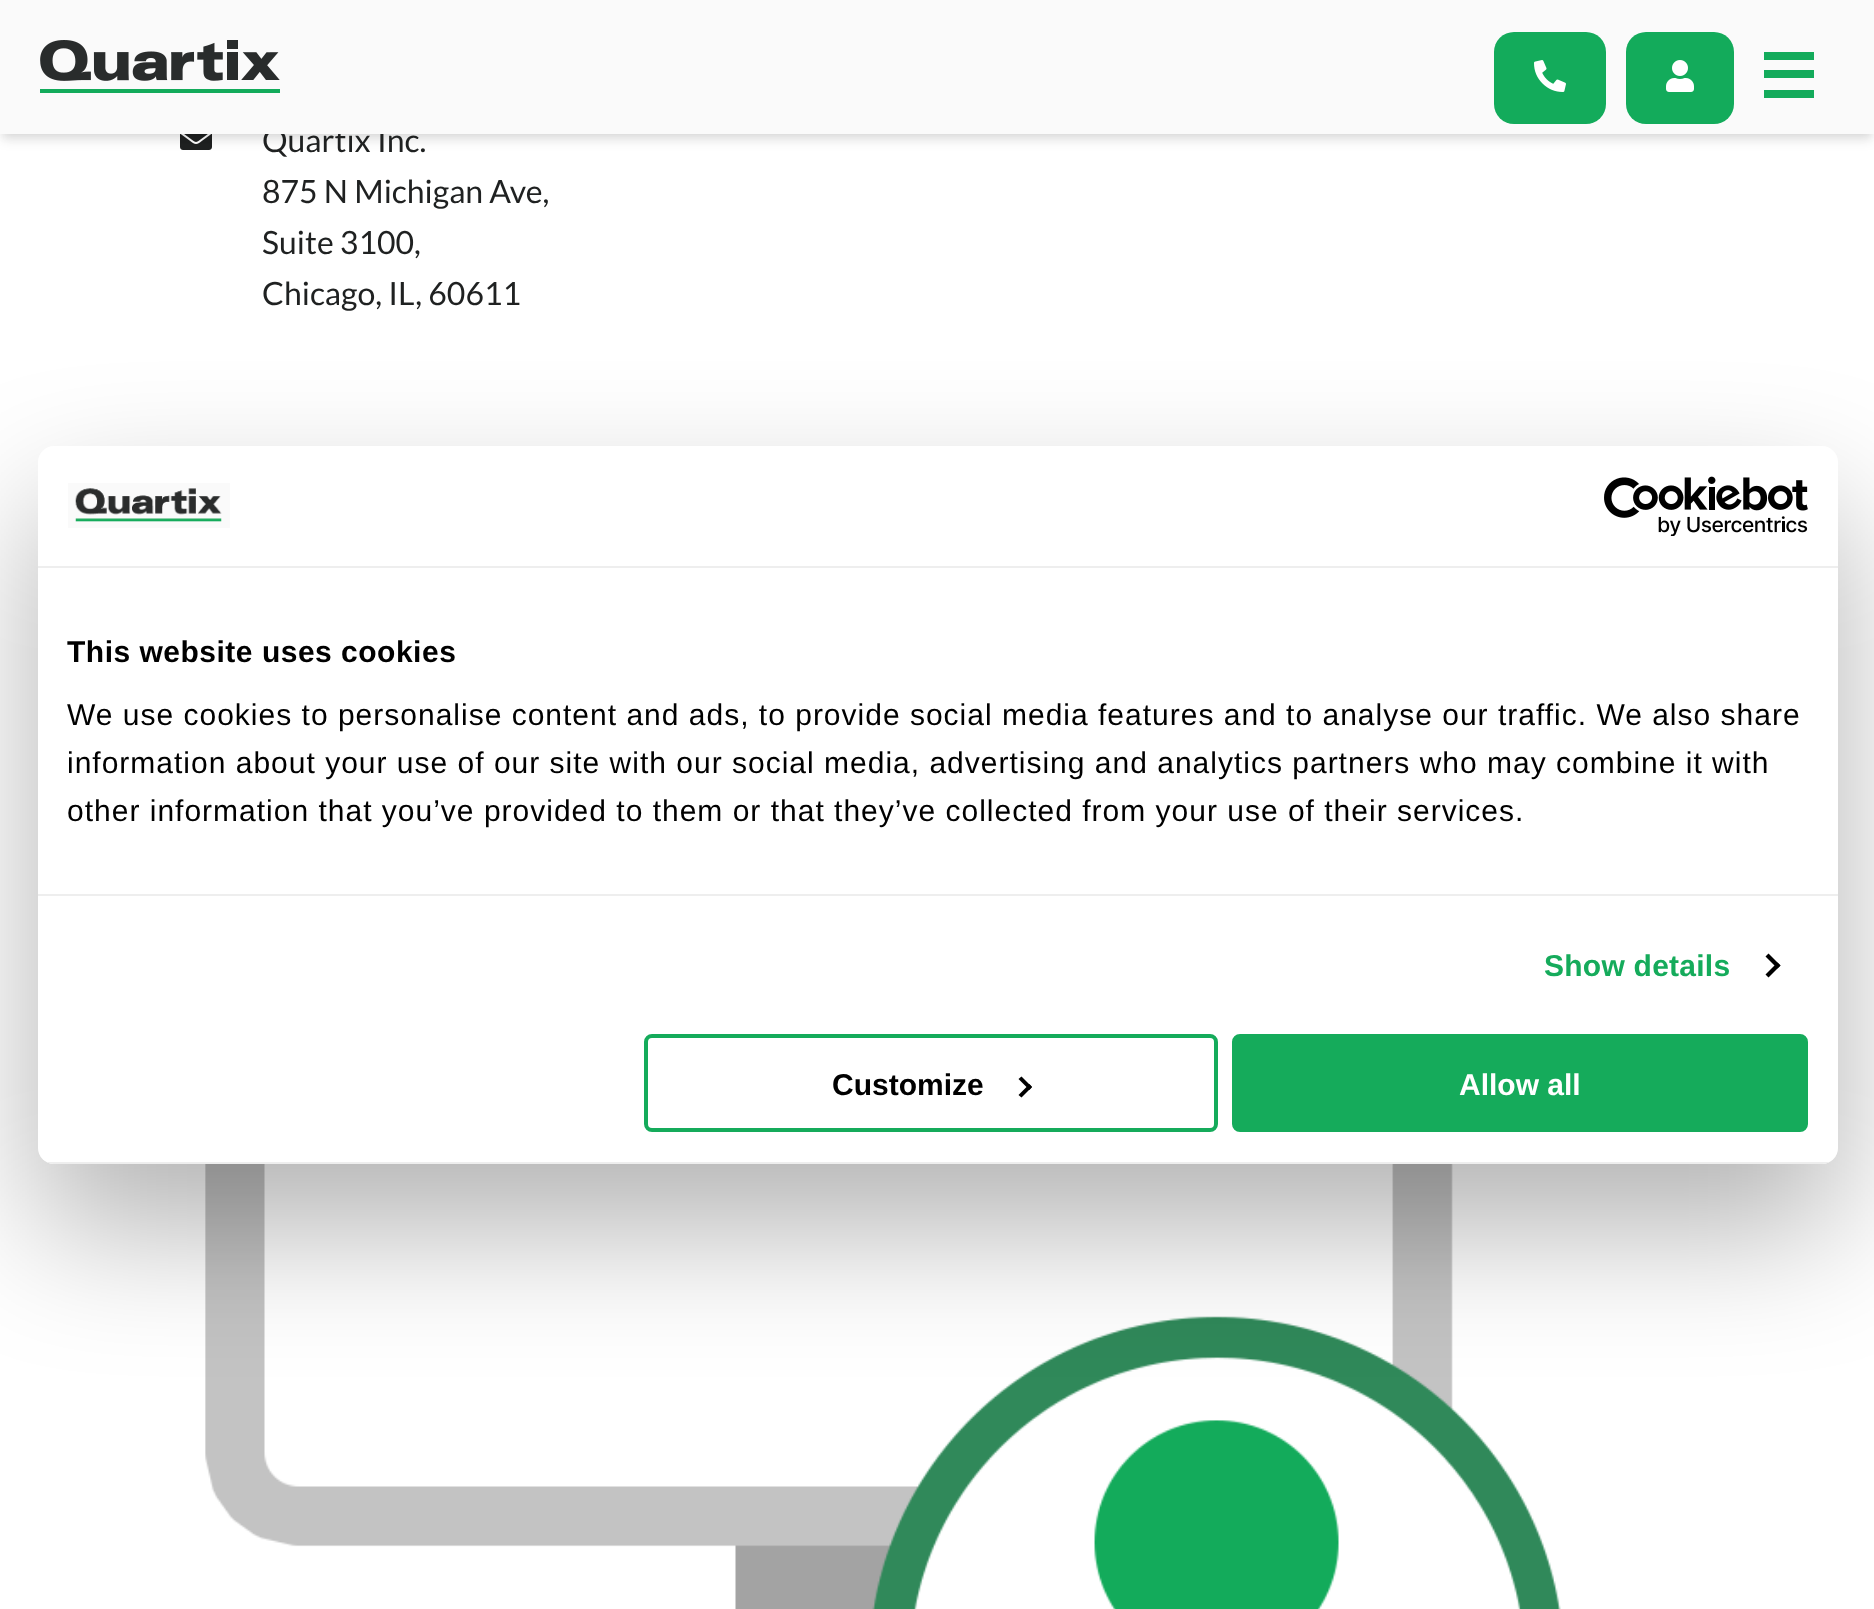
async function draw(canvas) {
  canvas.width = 1874;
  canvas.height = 1609;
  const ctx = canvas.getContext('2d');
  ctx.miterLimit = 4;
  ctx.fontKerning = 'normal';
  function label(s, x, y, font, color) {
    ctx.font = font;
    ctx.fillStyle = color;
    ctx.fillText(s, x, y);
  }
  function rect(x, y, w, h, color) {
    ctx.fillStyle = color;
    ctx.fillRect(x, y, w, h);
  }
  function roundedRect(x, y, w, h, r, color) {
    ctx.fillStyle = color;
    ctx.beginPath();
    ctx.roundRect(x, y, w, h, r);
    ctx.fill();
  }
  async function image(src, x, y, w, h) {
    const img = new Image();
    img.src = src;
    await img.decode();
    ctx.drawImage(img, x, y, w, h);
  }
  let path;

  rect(0, 0, 1874, 1609, '#fff');
  await image('assets/img4.png', 180, 134, 32, 16);
  ctx.fillStyle = '#0000000f';
  ctx.filter = 'blur(4px)';
  ctx.beginPath();
  ctx.rect(2, 6, 1870, 130);
  ctx.fill();
  ctx.filter = 'none';
  ctx.fillStyle = '#0000001a';
  ctx.filter = 'blur(6px)';
  ctx.beginPath();
  ctx.rect(2, 10, 1870, 130);
  ctx.fill();
  ctx.filter = 'none';
  label('Quartix Inc.', 262, 152, '32px Lato', '#1f2121');
  rect(0, 0, 1874, 134, '#fafafa');
  await image('assets/img1.png', 40, 40, 240, 53);
  roundedRect(1494, 32, 112, 92, 20, '#13ab5b');
  await image('assets/img2.png', 1534, 60, 32, 32);
  roundedRect(1626, 32, 108, 92, 20, '#13ab5b');
  await image('assets/img3.png', 1666, 60, 28, 32);
  rect(1764, 70, 50, 8, '#13ab5b');
  rect(1764, 52, 50, 8, '#13ab5b');
  rect(1764, 90, 50, 8, '#13ab5b');
  label('875 N Michigan Ave,', 262, 203, '32px Lato', '#1f2121');
  label('Suite 3100,', 262, 254, '32px Lato', '#1f2121');
  label('Chicago, IL, 60611', 262, 305, '32px Lato', '#1f2121');
  await image('assets/img5.png', 205, 1164, 1356, 445);
  ctx.fillStyle = '#0000004d';
  ctx.filter = 'blur(68px)';
  ctx.beginPath();
  ctx.roundRect(38, 510, 1800, 718, 16);
  ctx.fill();
  ctx.filter = 'none';
  roundedRect(38, 446, 1800, 718, 16, '#fff');
  rect(38, 566, 1800, 2, '#eee');
  await image('assets/img6.png', 68, 483, 162, 45);
  await image('assets/img7.png', 1604, 476, 204, 60);
  rect(38, 894, 1800, 2, '#eee');
  ctx.letterSpacing = '0.5px';
  label('This website uses cookies', 67, 662, 'bold 30px Liberation Sans', '#000');
  ctx.letterSpacing = '1px';
  label('We use cookies to personalise content and ads, to provide social media features and to analyse our traffic. We also share', 67, 725, '30px Liberation Sans', '#000');
  label('information about your use of our site with our social media, advertising and analytics partners who may combine it with', 67, 773, '30px Liberation Sans', '#000');
  label('other information that you’ve provided to them or that they’ve collected from your use of their services.', 67, 821, '30px Liberation Sans', '#000');
  ctx.letterSpacing = '0.25px';
  label('Show details', 1544, 976, 'bold 30px Liberation Sans', '#15ab5b');
  ctx.fillStyle = '#000';
  path = new Path2D('M1768.5 953.5L1780.5 965.5L1777.5 968.5L1765.5 956.5Z');
  ctx.fill(path);
  path = new Path2D('M1777.5 962.5L1780.5 965.5L1768.5 977.5L1765.5 974.5Z');
  ctx.fill(path);
  ctx.save();
  ctx.beginPath();
  ctx.roundRect(38, 446, 1800, 718, 16);
  ctx.clip();
  rect(38, 1162, 1800, 2, '#eee');
  ctx.restore();
  ctx.beginPath();
  ctx.roundRect(646, 1036, 570, 94, 6);
  ctx.strokeStyle = '#15ab5b';
  ctx.lineWidth = 4;
  ctx.stroke();
  ctx.letterSpacing = '0px';
  label('Customize', 832, 1095, 'bold 30px Liberation Sans', '#000');
  path = new Path2D('M1021.5 1076.5L1032 1087L1029.5 1090L1018.5 1079Z');
  ctx.fill(path);
  path = new Path2D('M1029.5 1084L1032 1087L1021.5 1097.5L1018.5 1095Z');
  ctx.fill(path);
  ctx.fillStyle = '#15ab5b';
  ctx.beginPath();
  ctx.roundRect(1234, 1036, 572, 94, 6);
  ctx.fill();
  ctx.stroke();
  label('Allow all', 1459, 1095, 'bold 30px Liberation Sans', '#fff');
}

draw(document.querySelector('canvas'));
